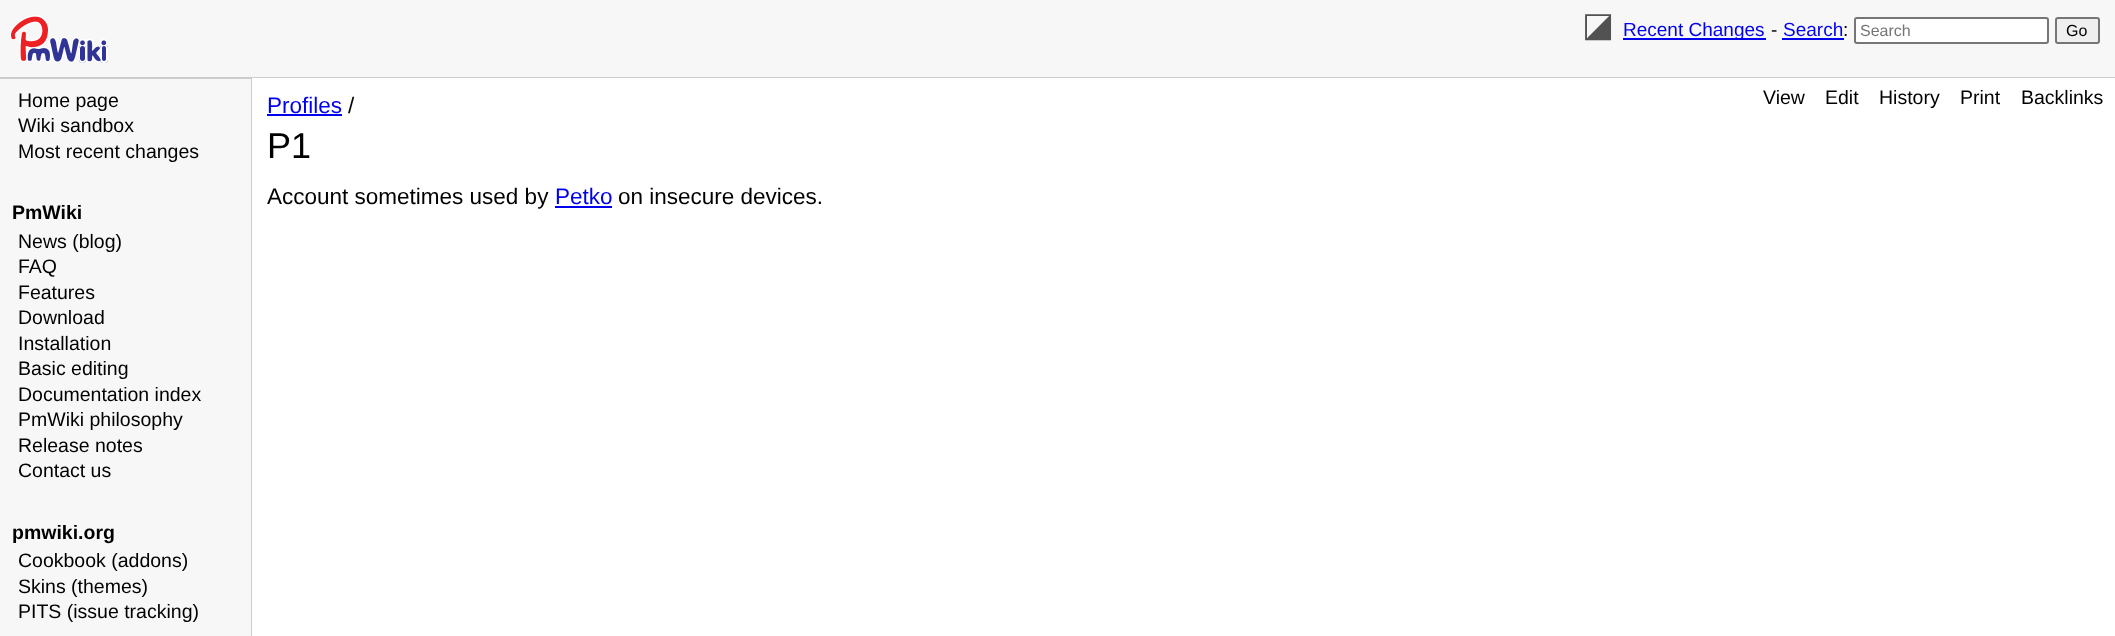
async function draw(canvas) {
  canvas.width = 2115;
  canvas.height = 636;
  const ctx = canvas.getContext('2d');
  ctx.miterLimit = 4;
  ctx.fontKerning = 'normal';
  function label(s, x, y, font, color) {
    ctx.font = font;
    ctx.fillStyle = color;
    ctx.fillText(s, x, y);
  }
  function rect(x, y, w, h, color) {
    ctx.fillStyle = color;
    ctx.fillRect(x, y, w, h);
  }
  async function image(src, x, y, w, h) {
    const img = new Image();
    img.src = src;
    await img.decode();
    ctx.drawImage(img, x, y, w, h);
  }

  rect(0, 0, 2115, 636, '#f7f7f7');
  rect(0, 77, 2115, 2, '#ccc');
  await image('assets/img1.png', 10, 15, 98, 48);
  label('◪', 1582, 36, '34px DejaVu Sans', '#525252');
  rect(1623, 38, 143, 2, '#00e');
  label('Recent Changes', 1623, 36, '19px Liberation Sans', '#00e');
  label('-', 1771, 36, '19px Liberation Sans', '#000');
  label('Search', 1783, 36, '19px Liberation Sans', '#00e');
  label(':', 1843, 36, '19px Liberation Sans', '#000');
  rect(1782, 38, 62, 2, '#00e');
  ctx.fillStyle = '#fff';
  ctx.beginPath();
  ctx.roundRect(1855, 18, 193, 25, 2);
  ctx.fill();
  ctx.strokeStyle = '#767676';
  ctx.lineWidth = 2;
  ctx.stroke();
  label('Search', 1860, 36, '16px Liberation Sans', '#757575');
  ctx.fillStyle = '#efefef';
  ctx.beginPath();
  ctx.roundRect(2056, 18, 43, 25, 2);
  ctx.fill();
  ctx.stroke();
  label('Go', 2066, 36, '16px Liberation Sans', '#000');
  rect(251, 78, 1, 558, '#ccc');
  label('Home page', 18, 107, '19.5px Liberation Sans', '#000');
  label('Wiki sandbox', 18, 132, '19.5px Liberation Sans', '#000');
  label('Most recent changes', 18, 158, '19.5px Liberation Sans', '#000');
  label('PmWiki', 12, 219, 'bold 19.5px Liberation Sans', '#000');
  label('News (blog)', 18, 248, '19.5px Liberation Sans', '#000');
  label('FAQ', 18, 273, '19.5px Liberation Sans', '#000');
  label('Features', 18, 299, '19.5px Liberation Sans', '#000');
  label('Download', 18, 324, '19.5px Liberation Sans', '#000');
  label('Installation', 18, 350, '19.5px Liberation Sans', '#000');
  label('Basic editing', 18, 375, '19.5px Liberation Sans', '#000');
  label('Documentation index', 18, 401, '19.5px Liberation Sans', '#000');
  label('PmWiki philosophy', 18, 426, '19.5px Liberation Sans', '#000');
  label('Release notes', 18, 452, '19.5px Liberation Sans', '#000');
  label('Contact us', 18, 477, '19.5px Liberation Sans', '#000');
  label('pmwiki.org', 12, 539, 'bold 19.5px Liberation Sans', '#000');
  label('Cookbook (addons)', 18, 567, '19.5px Liberation Sans', '#000');
  label('Skins (themes)', 18, 593, '19.5px Liberation Sans', '#000');
  label('PITS (issue tracking)', 18, 618, '19.5px Liberation Sans', '#000');
  rect(252, 78, 1863, 558, '#fff');
  label('Profiles', 267, 113, '22.5px Liberation Sans', '#00e');
  rect(267, 114, 75, 2, '#00e');
  label('/', 348, 113, '22.5px Liberation Sans', '#000');
  label('P1', 267, 158, '36px Liberation Sans', '#000');
  label('View', 1763, 104, '19.5px Liberation Sans', '#000');
  label('Edit', 1825, 104, '19.5px Liberation Sans', '#000');
  label('History', 1879, 104, '19.5px Liberation Sans', '#000');
  label('Print', 1960, 104, '19.5px Liberation Sans', '#000');
  label('Backlinks', 2021, 104, '19.5px Liberation Sans', '#000');
  label('Account sometimes used by', 267, 204, '22.5px Liberation Sans', '#000');
  label('Petko', 555, 204, '22.5px Liberation Sans', '#00e');
  rect(555, 206, 57, 2, '#00e');
  label('on insecure devices.', 618, 204, '22.5px Liberation Sans', '#000');
}

draw(document.querySelector('canvas'));
